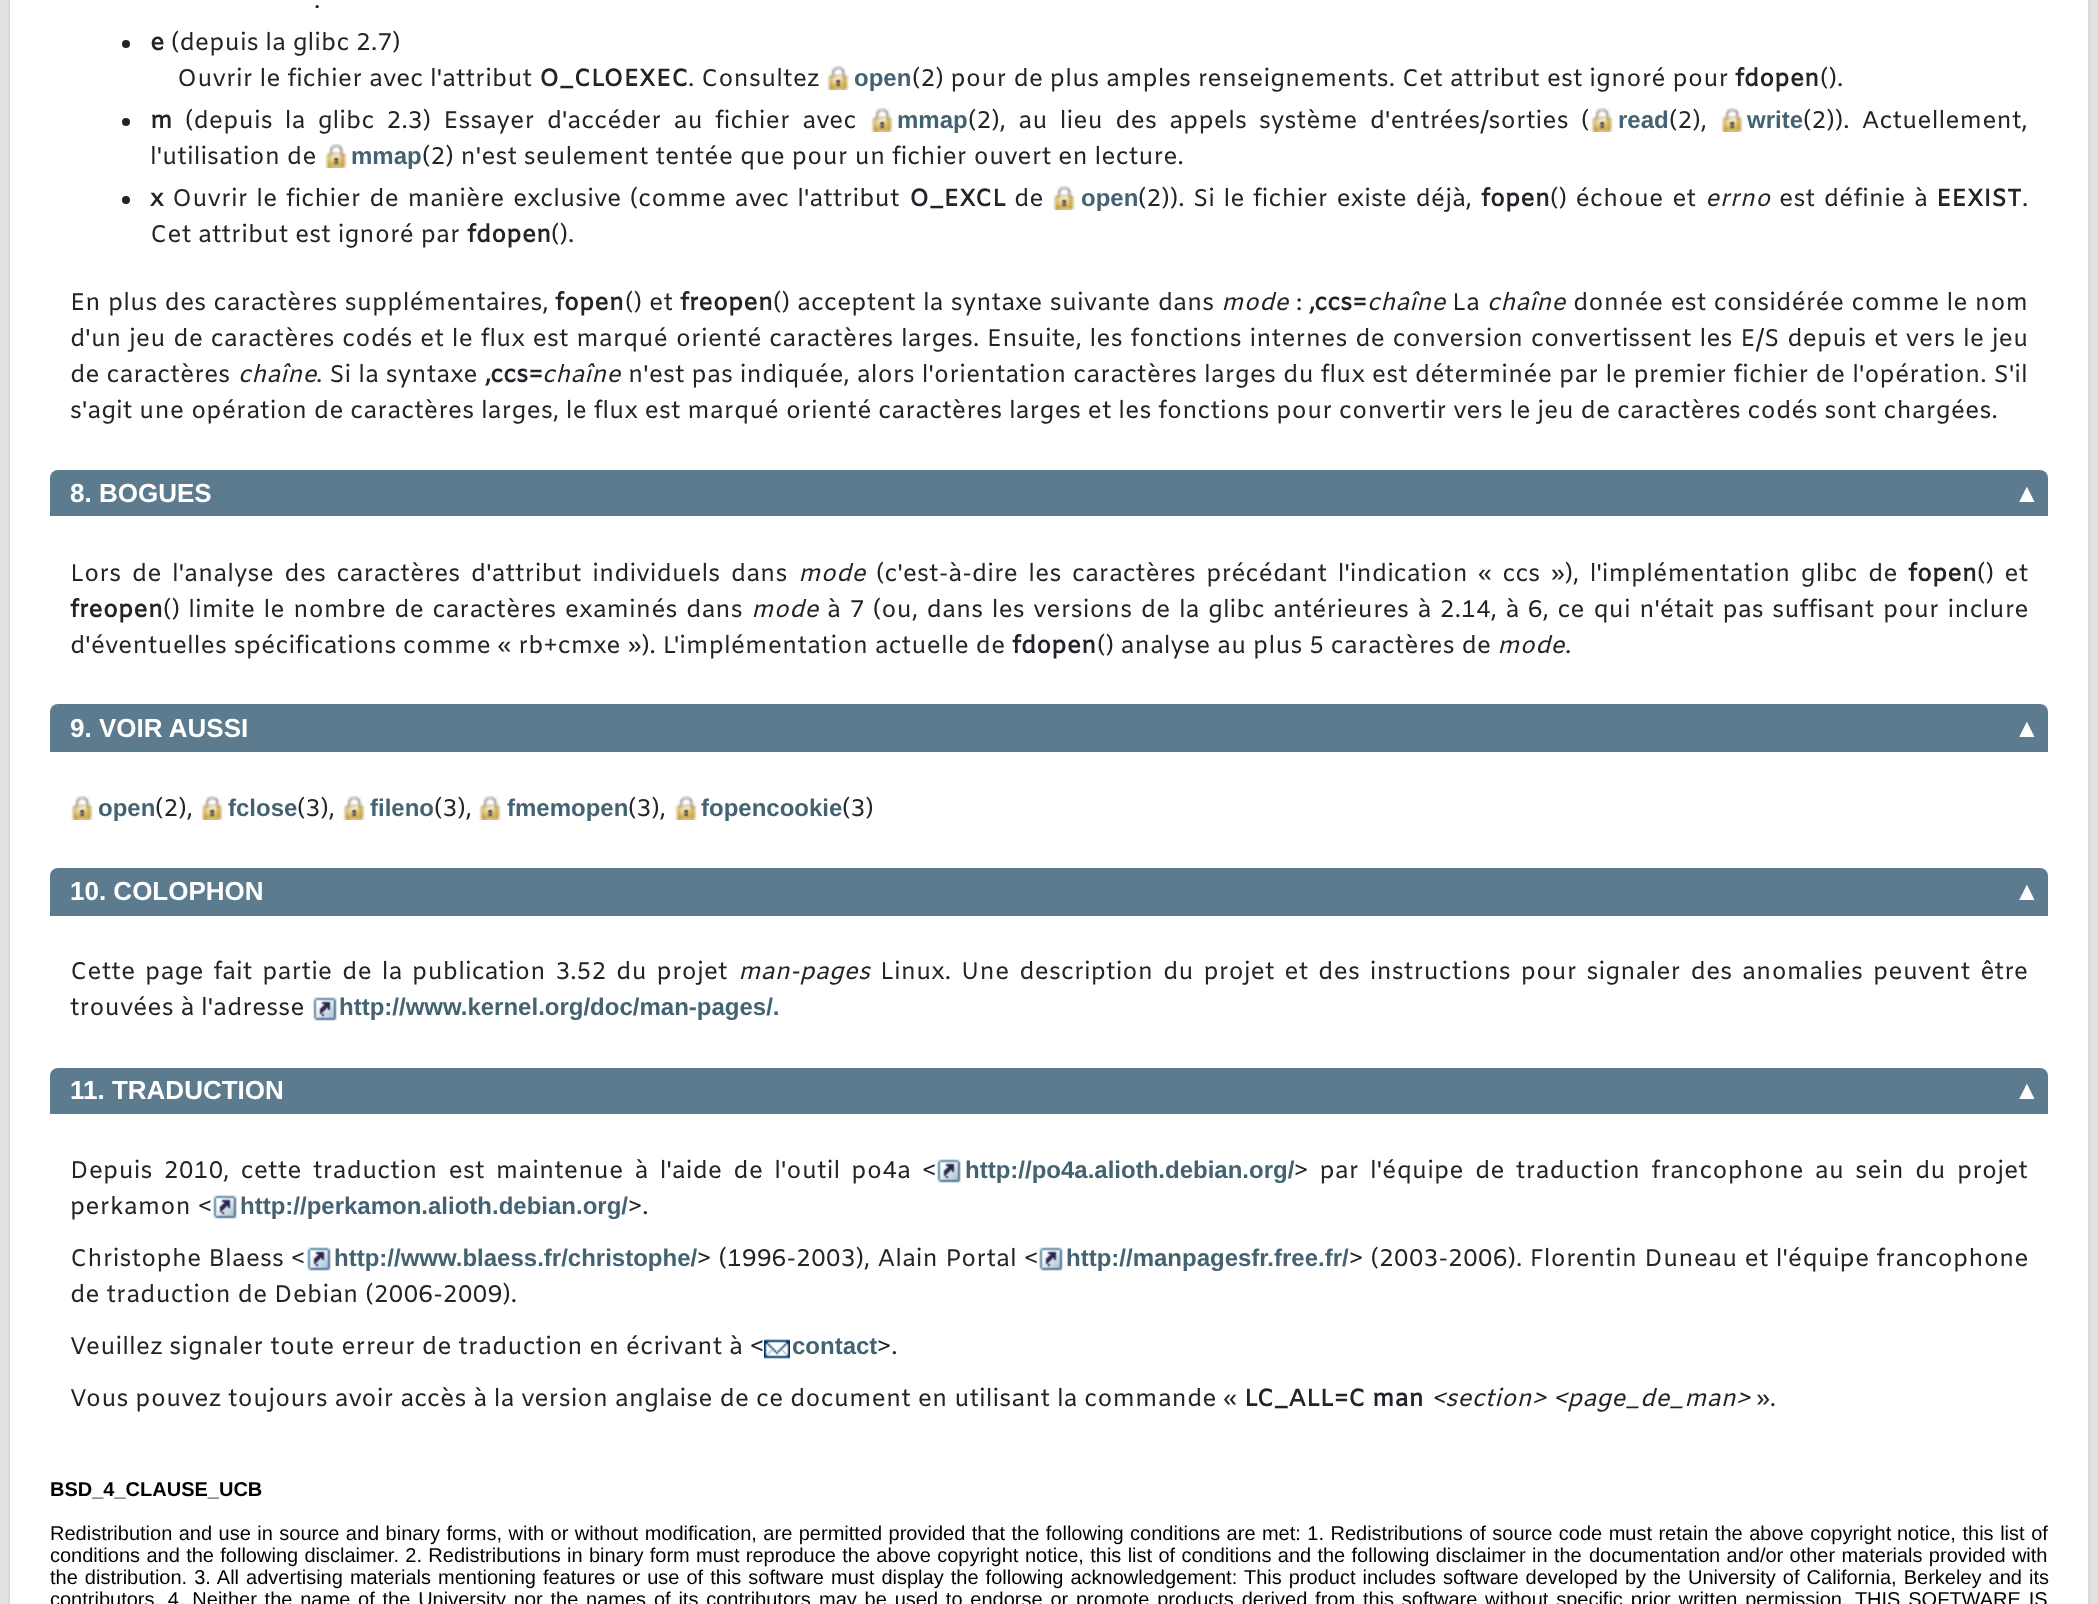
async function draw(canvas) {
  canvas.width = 2098;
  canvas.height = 1604;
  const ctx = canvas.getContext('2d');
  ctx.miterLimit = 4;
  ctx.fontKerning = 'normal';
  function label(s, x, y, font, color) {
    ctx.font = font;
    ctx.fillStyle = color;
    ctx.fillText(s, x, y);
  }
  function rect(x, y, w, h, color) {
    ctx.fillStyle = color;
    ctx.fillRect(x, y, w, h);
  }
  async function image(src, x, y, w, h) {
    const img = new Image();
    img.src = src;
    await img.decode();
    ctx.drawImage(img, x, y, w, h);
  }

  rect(0, 0, 2098, 1604, '#e1e1e2');
  ctx.fillStyle = '#fff';
  ctx.beginPath();
  ctx.rect(9, -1, 2080, 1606);
  ctx.fill();
  ctx.strokeStyle = '#d7d9db';
  ctx.lineWidth = 2;
  ctx.stroke();
  label('.', 314, 8, '24px Amiko', '#212529');
  ctx.beginPath();
  ctx.arc(126, 44, 4, 0, 2 * Math.PI);
  ctx.fill();
  label('e', 150, 50, 'bold 24px Amiko', '#212529');
  label('(depuis la glibc 2.7)', 171, 50, '24px Amiko', '#212529');
  label('Ouvrir le fichier avec l\'attribut', 177, 86, '24px Amiko', '#212529');
  label('O_CLOEXEC', 539, 86, 'bold 24px Amiko', '#212529');
  label('. Consultez', 688, 86, '24px Amiko', '#212529');
  await image('assets/img1.png', 827, 66, 22, 24);
  label('open', 854, 86, 'bold 24px Liberation Sans', '#446372');
  label('(2) pour de plus amples renseignements. Cet attribut est ignoré pour', 912, 86, '24px Amiko', '#212529');
  label('fdopen', 1735, 86, 'bold 24px Amiko', '#212529');
  label('().', 1820, 86, '24px Amiko', '#212529');
  ctx.beginPath();
  ctx.arc(126, 122, 4, 0, 2 * Math.PI);
  ctx.fill();
  label('m', 150, 128, 'bold 24px Amiko', '#212529');
  ctx.wordSpacing = '5.5px';
  label('(depuis la glibc 2.3) Essayer d\'accéder au fichier avec', 185, 128, '24px Amiko', '#212529');
  await image('assets/img1.png', 871, 108, 22, 24);
  ctx.wordSpacing = '0px';
  label('mmap', 897, 128, 'bold 24px Liberation Sans', '#446372');
  ctx.wordSpacing = '5.5px';
  label('(2), au lieu des appels système d\'entrées/sorties (', 968, 128, '24px Amiko', '#212529');
  await image('assets/img1.png', 1591, 108, 22, 24);
  ctx.wordSpacing = '0px';
  label('read', 1618, 128, 'bold 24px Liberation Sans', '#446372');
  label('(2),', 1669, 128, '24px Amiko', '#212529');
  await image('assets/img1.png', 1721, 108, 22, 24);
  label('write', 1747, 128, 'bold 24px Liberation Sans', '#446372');
  ctx.wordSpacing = '5.5px';
  label('(2)). Actuellement,', 1803, 128, '24px Amiko', '#212529');
  ctx.wordSpacing = '0px';
  label('l\'utilisation de', 150, 164, '24px Amiko', '#212529');
  await image('assets/img1.png', 325, 144, 22, 24);
  label('mmap', 351, 164, 'bold 24px Liberation Sans', '#446372');
  label('(2) n\'est seulement tentée que pour un fichier ouvert en lecture.', 422, 164, '24px Amiko', '#212529');
  ctx.beginPath();
  ctx.arc(126, 200, 4, 0, 2 * Math.PI);
  ctx.fill();
  label('x', 150, 206, 'bold 24px Amiko', '#212529');
  ctx.wordSpacing = '1.75px';
  label('Ouvrir le fichier de manière exclusive (comme avec l\'attribut', 172, 206, '24px Amiko', '#212529');
  ctx.wordSpacing = '0px';
  label('O_EXCL', 909, 206, 'bold 24px Amiko', '#212529');
  label('de', 1014, 206, '24px Amiko', '#212529');
  await image('assets/img1.png', 1053, 186, 22, 24);
  label('open', 1081, 206, 'bold 24px Liberation Sans', '#446372');
  ctx.wordSpacing = '1.75px';
  label('(2)). Si le fichier existe déjà,', 1138, 206, '24px Amiko', '#212529');
  ctx.wordSpacing = '0px';
  label('fopen', 1481, 206, 'bold 24px Amiko', '#212529');
  ctx.wordSpacing = '2px';
  label('() échoue et', 1550, 206, '24px Amiko', '#212529');
  ctx.wordSpacing = '0px';
  label('errno', 1705, 206, 'italic 24px Amiko', '#212529');
  ctx.wordSpacing = '2px';
  label('est définie à', 1779, 206, '24px Amiko', '#212529');
  ctx.wordSpacing = '0px';
  label('EEXIST', 1936, 206, 'bold 24px Amiko', '#212529');
  label('.', 2022, 206, '24px Amiko', '#212529');
  label('Cet attribut est ignoré par', 150, 242, '24px Amiko', '#212529');
  label('fdopen', 467, 242, 'bold 24px Amiko', '#212529');
  label('().', 551, 242, '24px Amiko', '#212529');
  ctx.wordSpacing = '0.5px';
  label('En plus des caractères supplémentaires,', 70, 310, '24px Amiko', '#212529');
  ctx.wordSpacing = '0px';
  label('fopen', 555, 310, 'bold 24px Amiko', '#212529');
  ctx.wordSpacing = '0.5px';
  label('() et', 625, 310, '24px Amiko', '#212529');
  ctx.wordSpacing = '0px';
  label('freopen', 680, 310, 'bold 24px Amiko', '#212529');
  ctx.wordSpacing = '0.5px';
  label('() acceptent la syntaxe suivante dans', 773, 310, '24px Amiko', '#212529');
  ctx.wordSpacing = '0px';
  label('mode', 1221, 310, 'italic 24px Amiko', '#212529');
  label(':', 1296, 310, '24px Amiko', '#212529');
  label(',ccs=', 1309, 310, 'bold 24px Amiko', '#212529');
  label('chaîne', 1367, 310, 'italic 24px Amiko', '#212529');
  label('La', 1452, 310, '24px Amiko', '#212529');
  label('chaîne', 1487, 310, 'italic 24px Amiko', '#212529');
  ctx.wordSpacing = '0.5px';
  label('donnée est considérée comme le nom', 1573, 310, '24px Amiko', '#212529');
  ctx.wordSpacing = '1px';
  label('d\'un jeu de caractères codés et le flux est marqué orienté caractères larges. Ensuite, les fonctions internes de conversion convertissent les E/S depuis et vers le jeu', 70, 346, '24px Amiko', '#212529');
  ctx.wordSpacing = '0px';
  label('de caractères', 70, 382, '24px Amiko', '#212529');
  label('chaîne', 238, 382, 'italic 24px Amiko', '#212529');
  ctx.wordSpacing = '0.25px';
  label('. Si la syntaxe', 316, 382, '24px Amiko', '#212529');
  ctx.wordSpacing = '0px';
  label(',ccs=', 485, 382, 'bold 24px Amiko', '#212529');
  label('chaîne', 542, 382, 'italic 24px Amiko', '#212529');
  ctx.wordSpacing = '0.25px';
  label('n\'est pas indiquée, alors l\'orientation caractères larges du flux est déterminée par le premier fichier de l\'opération. S\'il', 628, 382, '24px Amiko', '#212529');
  ctx.wordSpacing = '0px';
  label('s\'agit une opération de caractères larges, le flux est marqué orienté caractères larges et les fonctions pour convertir vers le jeu de caractères codés sont chargées.', 70, 418, '24px Amiko', '#212529');
  ctx.fillStyle = '#5d7b8e';
  ctx.beginPath();
  ctx.roundRect(50, 470, 1998, 46, [8, 8, 0, 0]);
  ctx.fill();
  label('8. BOGUES', 70, 502, 'bold 26px Liberation Sans', '#fff');
  label('▲', 2014, 502, 'bold 26px Liberation Sans', '#fff');
  ctx.wordSpacing = '3.75px';
  label('Lors de l\'analyse des caractères d\'attribut individuels dans', 70, 581, '24px Amiko', '#212529');
  ctx.wordSpacing = '0px';
  label('mode', 798, 581, 'italic 24px Amiko', '#212529');
  ctx.wordSpacing = '3.75px';
  label('(c\'est-à-dire les caractères précédant l\'indication « ccs »), l\'implémentation glibc de', 876, 581, '24px Amiko', '#212529');
  ctx.wordSpacing = '0px';
  label('fopen', 1908, 581, 'bold 24px Amiko', '#212529');
  ctx.wordSpacing = '3.75px';
  label('() et', 1977, 581, '24px Amiko', '#212529');
  ctx.wordSpacing = '0px';
  label('freopen', 70, 617, 'bold 24px Amiko', '#212529');
  ctx.wordSpacing = '1.75px';
  label('() limite le nombre de caractères examinés dans', 163, 617, '24px Amiko', '#212529');
  ctx.wordSpacing = '0px';
  label('mode', 751, 617, 'italic 24px Amiko', '#212529');
  ctx.wordSpacing = '1.75px';
  label('à 7 (ou, dans les versions de la glibc antérieures à 2.14, à 6, ce qui n\'était pas suffisant pour inclure', 827, 617, '24px Amiko', '#212529');
  ctx.wordSpacing = '0px';
  label('d\'éventuelles spécifications comme « rb+cmxe »). L\'implémentation actuelle de', 70, 653, '24px Amiko', '#212529');
  label('fdopen', 1012, 653, 'bold 24px Amiko', '#212529');
  label('() analyse au plus 5 caractères de', 1097, 653, '24px Amiko', '#212529');
  label('mode', 1497, 653, 'italic 24px Amiko', '#212529');
  label('.', 1565, 653, '24px Amiko', '#212529');
  ctx.fillStyle = '#5d7b8e';
  ctx.beginPath();
  ctx.roundRect(50, 704, 1998, 48, [8, 8, 0, 0]);
  ctx.fill();
  label('9. VOIR AUSSI', 70, 737, 'bold 26px Liberation Sans', '#fff');
  label('▲', 2014, 737, 'bold 26px Liberation Sans', '#fff');
  await image('assets/img1.png', 71, 796, 22, 24);
  label('open', 98, 816, 'bold 24px Liberation Sans', '#446372');
  label('(2),', 155, 816, '24px Amiko', '#212529');
  await image('assets/img1.png', 201, 796, 22, 24);
  label('fclose', 228, 816, 'bold 24px Liberation Sans', '#446372');
  label('(3),', 297, 816, '24px Amiko', '#212529');
  await image('assets/img1.png', 343, 796, 22, 24);
  label('fileno', 370, 816, 'bold 24px Liberation Sans', '#446372');
  label('(3),', 434, 816, '24px Amiko', '#212529');
  await image('assets/img1.png', 479, 796, 22, 24);
  label('fmemopen', 507, 816, 'bold 24px Liberation Sans', '#446372');
  label('(3),', 628, 816, '24px Amiko', '#212529');
  await image('assets/img1.png', 675, 796, 22, 24);
  label('fopencookie', 701, 816, 'bold 24px Liberation Sans', '#446372');
  label('(3)', 842, 816, '24px Amiko', '#212529');
  ctx.fillStyle = '#5d7b8e';
  ctx.beginPath();
  ctx.roundRect(50, 868, 1998, 48, [8, 8, 0, 0]);
  ctx.fill();
  label('10. COLOPHON', 70, 900, 'bold 26px Liberation Sans', '#fff');
  label('▲', 2014, 900, 'bold 26px Liberation Sans', '#fff');
  ctx.wordSpacing = '3.1px';
  label('Cette page fait partie de la publication 3.52 du projet', 70, 979, '24px Amiko', '#212529');
  ctx.wordSpacing = '0px';
  label('man-pages', 738, 979, 'italic 24px Amiko', '#212529');
  ctx.wordSpacing = '3.1px';
  label('Linux. Une description du projet et des instructions pour signaler des anomalies peuvent être', 880, 979, '24px Amiko', '#212529');
  ctx.wordSpacing = '0px';
  label('trouvées à l\'adresse', 70, 1015, '24px Amiko', '#212529');
  await image('assets/img2.png', 313, 997, 24, 24);
  label('http://www.kernel.org/doc/man-pages/.', 339, 1015, 'bold 24px Liberation Sans', '#446372');
  ctx.fillStyle = '#5d7b8e';
  ctx.beginPath();
  ctx.roundRect(50, 1068, 1998, 46, [8, 8, 0, 0]);
  ctx.fill();
  label('11. TRADUCTION', 70, 1099, 'bold 26px Liberation Sans', '#fff');
  label('▲', 2014, 1099, 'bold 26px Liberation Sans', '#fff');
  ctx.wordSpacing = '4.5px';
  label('Depuis 2010, cette traduction est maintenue à l\'aide de l\'outil po4a <', 70, 1178, '24px Amiko', '#212529');
  await image('assets/img2.png', 937, 1159, 24, 24);
  ctx.wordSpacing = '0px';
  label('http://po4a.alioth.debian.org/', 965, 1178, 'bold 24px Liberation Sans', '#446372');
  ctx.wordSpacing = '4.5px';
  label('> par l\'équipe de traduction francophone au sein du projet', 1294, 1178, '24px Amiko', '#212529');
  ctx.wordSpacing = '0px';
  label('perkamon <', 70, 1214, '24px Amiko', '#212529');
  await image('assets/img2.png', 213, 1195, 24, 24);
  label('http://perkamon.alioth.debian.org/', 240, 1214, 'bold 24px Liberation Sans', '#446372');
  label('>.', 628, 1214, '24px Amiko', '#212529');
  label('Christophe Blaess <', 70, 1266, '24px Amiko', '#212529');
  await image('assets/img2.png', 307, 1247, 24, 24);
  label('http://www.blaess.fr/christophe/', 334, 1266, 'bold 24px Liberation Sans', '#446372');
  ctx.wordSpacing = '0.5px';
  label('> (1996-2003), Alain Portal <', 697, 1266, '24px Amiko', '#212529');
  await image('assets/img2.png', 1039, 1247, 24, 24);
  ctx.wordSpacing = '0px';
  label('http://manpagesfr.free.fr/', 1066, 1266, 'bold 24px Liberation Sans', '#446372');
  ctx.wordSpacing = '0.5px';
  label('> (2003-2006). Florentin Duneau et l\'équipe francophone', 1349, 1266, '24px Amiko', '#212529');
  ctx.wordSpacing = '0px';
  label('de traduction de Debian (2006-2009).', 70, 1302, '24px Amiko', '#212529');
  label('Veuillez signaler toute erreur de traduction en écrivant à <', 70, 1354, '24px Amiko', '#212529');
  await image('assets/img3.png', 764, 1339, 26, 20);
  label('contact', 792, 1354, 'bold 24px Liberation Sans', '#446372');
  label('>.', 877, 1354, '24px Amiko', '#212529');
  label('Vous pouvez toujours avoir accès à la version anglaise de ce document en utilisant la commande «', 70, 1406, '24px Amiko', '#212529');
  label('LC_ALL=C man', 1244, 1406, 'bold 24px Amiko', '#212529');
  label('<section> <page_de_man>', 1431, 1406, 'italic 24px Amiko', '#212529');
  label('».', 1756, 1406, '24px Amiko', '#212529');
  label('BSD_4_CLAUSE_UCB', 50, 1496, 'bold 20px Liberation Sans', '#000');
  ctx.wordSpacing = '0.9px';
  label('Redistribution and use in source and binary forms, with or without modification, are permitted provided that the following conditions are met: 1. Redistributions of source code must retain the above copyright', 50, 1540, '20px Liberation Sans', '#000');
  ctx.wordSpacing = '1px';
  label('notice, this list of', 1897, 1540, '20px Liberation Sans', '#000');
  ctx.wordSpacing = '0.8px';
  label('conditions and the following disclaimer. 2. Redistributions in binary form must reproduce the above copyright', 50, 1562, '20px Liberation Sans', '#000');
  ctx.wordSpacing = '0.75px';
  label('notice, this list of conditions and the following disclaimer in the', 1025, 1562, '20px Liberation Sans', '#000');
  label('documentation and/or other materials provided with', 1589, 1562, '20px Liberation Sans', '#000');
  ctx.wordSpacing = '1.5px';
  label('the distribution. 3. All advertising materials mentioning features or use of this software', 50, 1584, '20px Liberation Sans', '#000');
  label('must display the following acknowledgement: This product includes software developed by the University of California, Berkeley and its', 831, 1584, '20px Liberation Sans', '#000');
  ctx.wordSpacing = '2.25px';
  label('contributors. 4. Neither the name of the University nor the names of its contributors', 50, 1606, '20px Liberation Sans', '#000');
  label('may be used to endorse or promote products derived from this software', 819, 1606, '20px Liberation Sans', '#000');
  label('without specific prior written permission. THIS SOFTWARE IS', 1485, 1606, '20px Liberation Sans', '#000');
}

draw(document.querySelector('canvas'));
